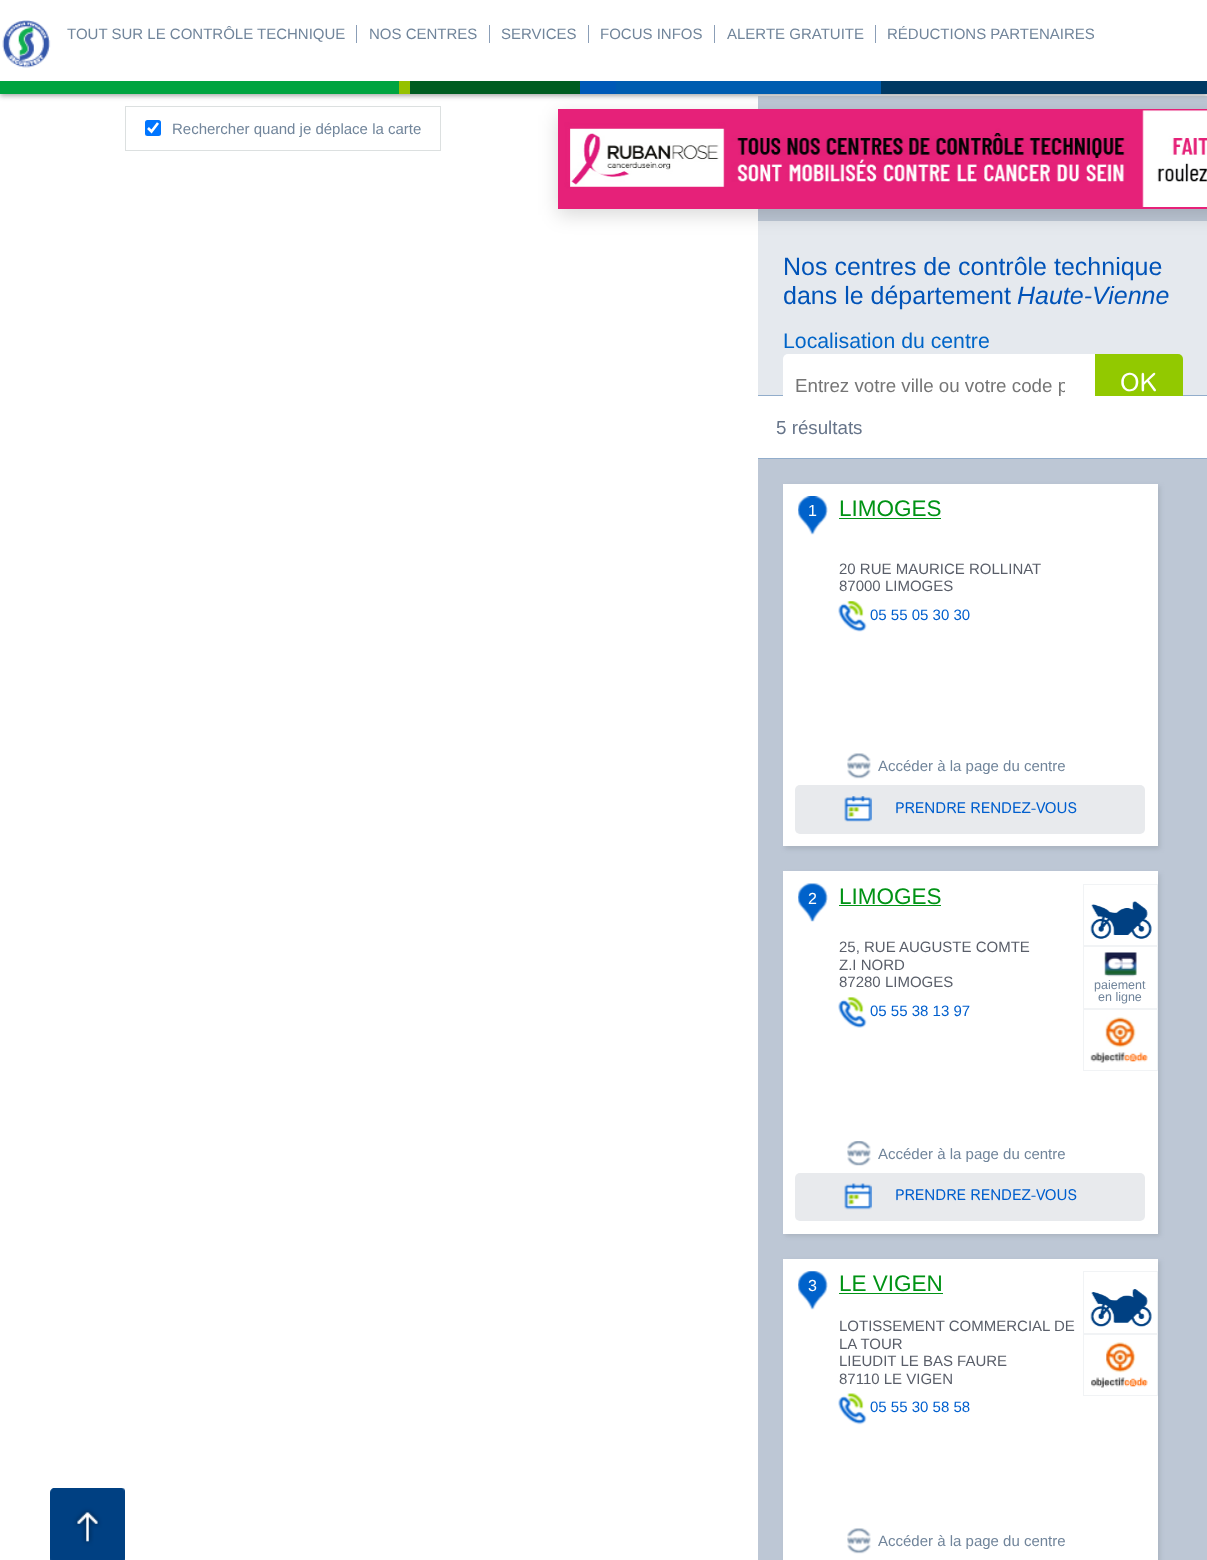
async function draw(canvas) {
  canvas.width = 1207;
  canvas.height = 1560;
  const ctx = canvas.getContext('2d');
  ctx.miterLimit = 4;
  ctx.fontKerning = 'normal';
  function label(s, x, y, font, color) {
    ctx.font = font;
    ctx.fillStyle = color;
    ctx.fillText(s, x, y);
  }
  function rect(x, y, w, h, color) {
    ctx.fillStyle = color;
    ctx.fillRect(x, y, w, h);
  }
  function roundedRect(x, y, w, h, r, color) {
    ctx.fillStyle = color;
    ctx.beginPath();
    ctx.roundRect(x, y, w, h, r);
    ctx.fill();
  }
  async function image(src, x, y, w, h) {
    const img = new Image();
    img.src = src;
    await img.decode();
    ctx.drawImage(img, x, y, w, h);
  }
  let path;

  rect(0, 0, 1207, 1560, '#fff');
  rect(758, 96, 449, 1464, '#bdc7d5');
  ctx.fillStyle = '#aaa';
  ctx.filter = 'blur(2.5px)';
  ctx.beginPath();
  ctx.rect(0, 3, 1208, 93);
  ctx.fill();
  ctx.filter = 'none';
  rect(0, 0, 1207, 81, '#fff');
  await image('assets/img1.png', 2, 20, 49, 48);
  label('TOUT SUR LE CONTRÔLE TECHNIQUE', 67, 39, '15px Liberation Sans', '#71859b');
  rect(356, 25, 1, 18, '#8b9eb7');
  label('NOS CENTRES', 369, 39, '15px Liberation Sans', '#71859b');
  rect(489, 25, 1, 18, '#8b9eb7');
  label('SERVICES', 501, 39, '15px Liberation Sans', '#71859b');
  rect(588, 25, 1, 18, '#8b9eb7');
  label('FOCUS INFOS', 600, 39, '15px Liberation Sans', '#71859b');
  rect(714, 25, 1, 18, '#8b9eb7');
  label('ALERTE GRATUITE', 727, 39, '15px Liberation Sans', '#71859b');
  rect(875, 25, 1, 18, '#8b9eb7');
  label('RÉDUCTIONS PARTENAIRES', 887, 39, '15px Liberation Sans', '#71859b');
  rect(0, 81, 399, 13, '#00a440');
  rect(399, 81, 11, 13, '#96c100');
  rect(758, 221, 449, 174, '#e5e9ee');
  ctx.fillStyle = '#00000026';
  ctx.filter = 'blur(9.5px)';
  ctx.beginPath();
  ctx.rect(558, 115, 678, 100);
  ctx.fill();
  ctx.filter = 'none';
  rect(410, 81, 170, 13, '#005d21');
  rect(580, 81, 36, 13, '#0059b7');
  rect(616, 81, 265, 13, '#005db0');
  rect(881, 81, 326, 13, '#003963');
  await image('assets/img2.png', 50, 1488, 75, 72);
  ctx.strokeStyle = '#dce0e0';
  ctx.strokeRect(125.5, 106.5, 315, 44);
  roundedRect(145, 120, 16, 16, 2.5, '#0075ff');
  path = new Path2D('M148 128L151.5 131.5L158 123');
  ctx.strokeStyle = '#fff';
  ctx.lineWidth = 2.6;
  ctx.stroke(path);
  label('Rechercher quand je déplace la carte', 172, 134, '15px Liberation Sans', '#71859b');
  await image('assets/img3.png', 558, 109, 649, 100);
  rect(758, 395, 449, 1, '#92adcb');
  label('Nos centres de contrôle technique', 783, 275, '25px Liberation Sans', '#0053b8');
  label('dans le département', 783, 304, '25px Liberation Sans', '#0053b8');
  label('Haute-Vienne', 1017, 304, 'italic 25px Liberation Sans', '#0053b8');
  label('Localisation du centre', 783, 348, '21.25px Liberation Sans', '#0065c8');
  ctx.fillStyle = '#fff';
  ctx.beginPath();
  ctx.roundRect(783, 354, 312, 62, [5, 0, 0, 5]);
  ctx.fill();
  ctx.save();
  ctx.beginPath();
  ctx.rect(795, 375, 270, 21);
  ctx.clip();
  label('Entrez votre ville ou votre code p', 795, 392, '18.75px Liberation Sans', '#757575');
  ctx.restore();
  ctx.fillStyle = '#92c900';
  ctx.beginPath();
  ctx.roundRect(1095, 354, 88, 62, [0, 5, 5, 0]);
  ctx.fill();
  label('OK', 1120, 391, '25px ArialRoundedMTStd', '#fff');
  rect(758, 396, 449, 62, '#fff');
  rect(758, 458, 449, 1, '#92adcb');
  label('5 résultats', 776, 434, '18.75px Liberation Sans', '#667489');
  ctx.fillStyle = '#aab3bf';
  ctx.filter = 'blur(2px)';
  ctx.beginPath();
  ctx.rect(785, 486, 375, 363);
  ctx.fill();
  ctx.filter = 'none';
  rect(783, 484, 375, 362, '#fff');
  await image('assets/img4.png', 798, 496, 30, 39);
  label('1', 808, 516, '16px Liberation Sans', '#fff');
  label('LIMOGES', 839, 516, '22.5px Liberation Sans', '#009315');
  rect(839, 518, 102, 1, '#009315');
  label('20 RUE MAURICE ROLLINAT', 839, 574, '15px Liberation Sans', '#595e69');
  label('87000 LIMOGES', 839, 591, '15px Liberation Sans', '#595e69');
  await image('assets/img5.png', 838, 601, 29, 31);
  label('05 55 05 30 30', 870, 620, '15px Liberation Sans', '#005fce');
  await image('assets/img6.png', 847, 753, 24, 26);
  label('Accéder à la page du centre', 878, 771, '15px Liberation Sans', '#71859b');
  roundedRect(795, 785, 350, 49, 5, '#e8eaed');
  await image('assets/img7.png', 844, 796, 28, 26);
  label('PRENDRE RENDEZ-VOUS', 895, 813, '15px ArialRoundedMTStd', '#005fce');
  ctx.fillStyle = '#aab3bf';
  ctx.filter = 'blur(2px)';
  ctx.beginPath();
  ctx.rect(785, 874, 375, 362);
  ctx.fill();
  ctx.filter = 'none';
  rect(783, 871, 375, 363, '#fff');
  await image('assets/img8.png', 798, 883, 30, 39);
  label('2', 808, 904, '16px Liberation Sans', '#fff');
  label('LIMOGES', 839, 904, '22.5px Liberation Sans', '#009315');
  rect(839, 905, 102, 1, '#009315');
  label('25, RUE AUGUSTE COMTE', 839, 952, '15px Liberation Sans', '#595e69');
  label('Z.I NORD', 839, 970, '15px Liberation Sans', '#595e69');
  label('87280 LIMOGES', 839, 987, '15px Liberation Sans', '#595e69');
  await image('assets/img9.png', 838, 997, 29, 31);
  label('05 55 38 13 97', 870, 1016, '15px Liberation Sans', '#005fce');
  ctx.strokeStyle = '#f1f3f5';
  ctx.lineWidth = 1;
  ctx.strokeRect(1083.5, 884.5, 74, 61);
  await image('assets/img10.png', 1090, 901, 62, 38);
  ctx.strokeRect(1083.5, 946.5, 74, 62);
  await image('assets/img11.png', 1104, 952, 33, 25);
  label('paiement', 1094, 989, '12.5px Liberation Sans', '#71859b');
  label('en ligne', 1098, 1001, '12.5px Liberation Sans', '#71859b');
  ctx.strokeRect(1083.5, 1009.5, 74, 61);
  await image('assets/img12.png', 1090, 1017, 58, 46);
  await image('assets/img13.png', 847, 1141, 24, 25);
  label('Accéder à la page du centre', 878, 1159, '15px Liberation Sans', '#71859b');
  roundedRect(795, 1173, 350, 48, 5, '#e8eaed');
  await image('assets/img14.png', 844, 1183, 28, 27);
  label('PRENDRE RENDEZ-VOUS', 895, 1200, '15px ArialRoundedMTStd', '#005fce');
  ctx.fillStyle = '#aab3bf';
  ctx.filter = 'blur(2px)';
  ctx.beginPath();
  ctx.rect(785, 1261, 375, 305);
  ctx.fill();
  ctx.filter = 'none';
  rect(783, 1259, 375, 301, '#fff');
  await image('assets/img15.png', 798, 1271, 30, 39);
  label('3', 808, 1291, '16px Liberation Sans', '#fff');
  label('LE VIGEN', 839, 1291, '22.5px Liberation Sans', '#009315');
  rect(839, 1293, 104, 1, '#009315');
  label('LOTISSEMENT COMMERCIAL DE', 839, 1331, '15px Liberation Sans', '#595e69');
  label('LA TOUR', 839, 1349, '15px Liberation Sans', '#595e69');
  label('LIEUDIT LE BAS FAURE', 839, 1366, '15px Liberation Sans', '#595e69');
  label('87110 LE VIGEN', 839, 1384, '15px Liberation Sans', '#595e69');
  await image('assets/img16.png', 838, 1393, 29, 32);
  label('05 55 30 58 58', 870, 1412, '15px Liberation Sans', '#005fce');
  ctx.strokeRect(1083.5, 1271.5, 74, 62);
  await image('assets/img17.png', 1090, 1289, 62, 38);
  ctx.strokeRect(1083.5, 1334.5, 74, 61);
  await image('assets/img18.png', 1091, 1342, 57, 46);
  await image('assets/img6.png', 847, 1528, 24, 26);
  label('Accéder à la page du centre', 878, 1546, '15px Liberation Sans', '#71859b');
}

draw(document.querySelector('canvas'));
